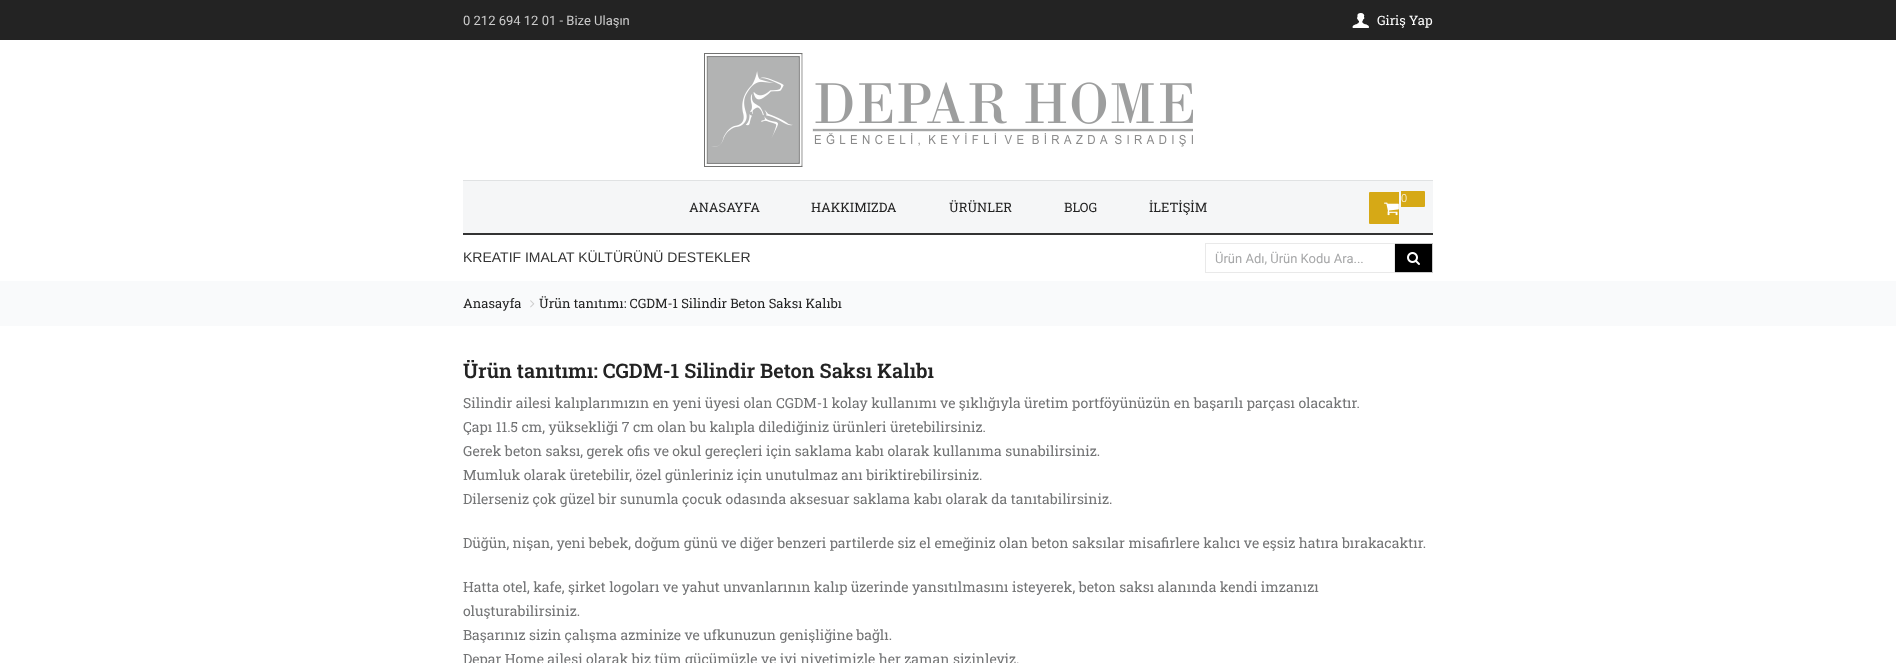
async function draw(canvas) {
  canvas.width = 1896;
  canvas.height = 663;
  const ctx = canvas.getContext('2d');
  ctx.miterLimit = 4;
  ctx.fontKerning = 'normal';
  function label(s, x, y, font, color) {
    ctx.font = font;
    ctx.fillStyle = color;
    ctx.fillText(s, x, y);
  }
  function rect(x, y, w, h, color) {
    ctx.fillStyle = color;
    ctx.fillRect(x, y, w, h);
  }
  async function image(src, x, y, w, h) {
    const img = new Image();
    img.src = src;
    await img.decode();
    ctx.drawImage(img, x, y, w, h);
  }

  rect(0, 0, 1896, 663, '#fff');
  rect(0, 0, 1896, 40, '#232323');
  label('0 212 694 12 01 - Bize Ulaşın', 463, 25, '13px Roboto', '#ccc');
  await image('assets/img1.png', 1352, 13, 17, 15);
  label('Giriş Yap', 1377, 25, '13px Roboto Slab', '#fff');
  rect(463, 233, 970, 2, '#333');
  await image('assets/img2.png', 704, 53, 489, 114);
  rect(463, 181, 970, 52, '#f5f6f7');
  rect(463, 180, 970, 1, '#e0e2e3');
  ctx.fillStyle = '#d6a916';
  ctx.beginPath();
  ctx.roundRect(1369, 192, 30, 32, [1, 0, 0, 1]);
  ctx.fill();
  ctx.beginPath();
  ctx.roundRect(1401, 191, 24, 16, [0, 1, 1, 0]);
  ctx.fill();
  label('0', 1401, 202, '300 11px Roboto', '#fff');
  await image('assets/img3.png', 1384, 202, 15, 14);
  label('ANASAYFA', 689, 212, '13px Roboto Slab', '#232323');
  label('HAKKIMIZDA', 811, 212, '13px Roboto Slab', '#232323');
  label('ÜRÜNLER', 949, 212, '13px Roboto Slab', '#232323');
  label('BLOG', 1064, 212, '13px Roboto Slab', '#232323');
  label('İLETİŞİM', 1149, 212, '13px Roboto Slab', '#232323');
  label('KREATIF IMALAT KÜLTÜRÜNÜ DESTEKLER', 463, 262, '14px Liberation Sans', '#333');
  ctx.strokeStyle = '#e9e9e9';
  ctx.strokeRect(1205.5, 243.5, 189, 29);
  label('Ürün Adı, Ürün Kodu Ara...', 1215, 263, '13px Roboto', '#a6a7a8');
  rect(1395, 244, 37, 28, '#000');
  rect(1395, 243, 38, 1, '#ccc');
  rect(1432, 243, 1, 30, '#ccc');
  rect(1395, 272, 38, 1, '#ccc');
  await image('assets/img4.png', 1407, 252, 13, 13);
  rect(0, 281, 1896, 45, '#f9fafb');
  label('Anasayfa', 463, 308, '13px Roboto Slab', '#232323');
  await image('assets/img5.png', 530, 300, 5, 8);
  label('Ürün tanıtımı: CGDM-1 Silindir Beton Saksı Kalıbı', 539, 308, '13px Roboto Slab', '#232323');
  label('Ürün tanıtımı: CGDM-1 Silindir Beton Saksı Kalıbı', 463, 378, '600 20px Roboto Slab', '#232323');
  label('Silindir ailesi kalıplarımızın en yeni üyesi olan CGDM-1 kolay kullanımı ve şıklığıyla üretim portföyünüzün en başarılı parçası olacaktır.', 463, 408, '14px Roboto Slab', '#737475');
  label('Çapı 11.5 cm, yüksekliği 7 cm olan bu kalıpla dilediğiniz ürünleri üretebilirsiniz.', 463, 432, '14px Roboto Slab', '#737475');
  label('Gerek beton saksı, gerek ofis ve okul gereçleri için saklama kabı olarak kullanıma sunabilirsiniz.', 463, 456, '14px Roboto Slab', '#737475');
  label('Mumluk olarak üretebilir, özel günleriniz için unutulmaz anı biriktirebilirsiniz.', 463, 480, '14px Roboto Slab', '#737475');
  label('Dilerseniz çok güzel bir sunumla çocuk odasında aksesuar saklama kabı olarak da tanıtabilirsiniz.', 463, 504, '14px Roboto Slab', '#737475');
  label('Düğün, nişan, yeni bebek, doğum günü ve diğer benzeri partilerde siz el emeğiniz olan beton saksılar misafirlere kalıcı ve eşsiz hatıra bırakacaktır.', 463, 548, '14px Roboto Slab', '#737475');
  label('Hatta otel, kafe, şirket logoları ve yahut unvanlarının kalıp üzerinde yansıtılmasını isteyerek, beton saksı alanında kendi imzanızı', 463, 592, '14px Roboto Slab', '#737475');
  label('oluşturabilirsiniz.', 463, 616, '14px Roboto Slab', '#737475');
  label('Başarınız sizin çalışma azminize ve ufkunuzun genişliğine bağlı.', 463, 640, '14px Roboto Slab', '#737475');
  label('Depar Home ailesi olarak biz tüm gücümüzle ve iyi niyetimizle her zaman sizinleyiz.', 463, 664, '14px Roboto Slab', '#737475');
}

draw(document.querySelector('canvas'));
